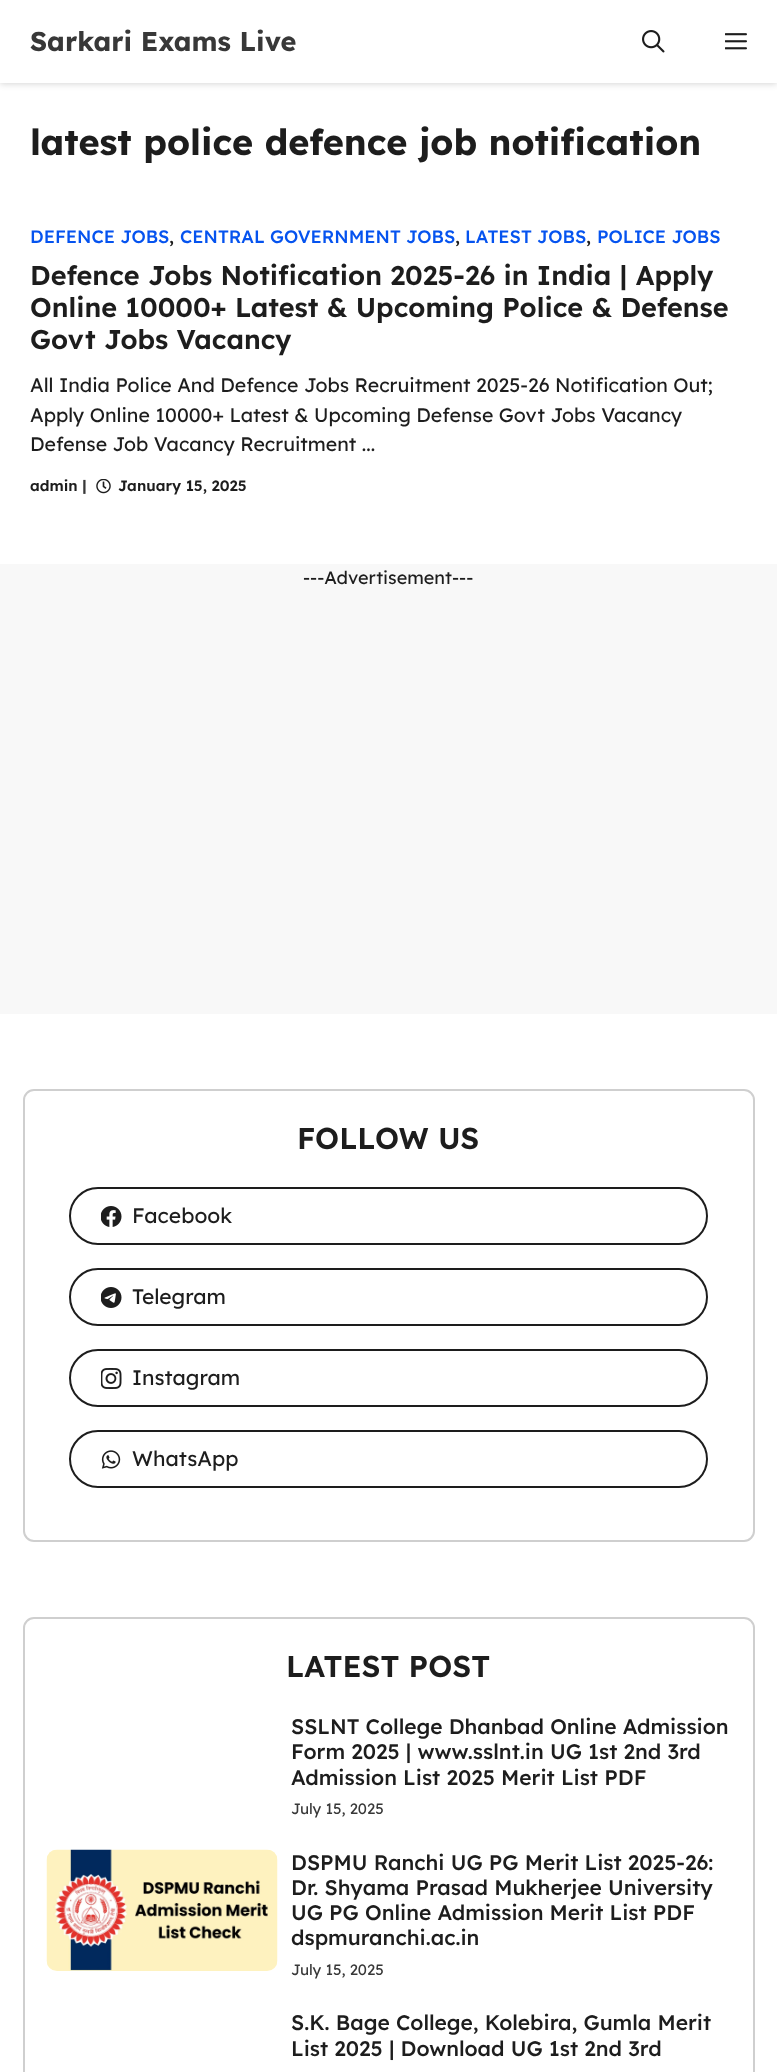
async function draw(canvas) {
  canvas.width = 777;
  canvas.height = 2072;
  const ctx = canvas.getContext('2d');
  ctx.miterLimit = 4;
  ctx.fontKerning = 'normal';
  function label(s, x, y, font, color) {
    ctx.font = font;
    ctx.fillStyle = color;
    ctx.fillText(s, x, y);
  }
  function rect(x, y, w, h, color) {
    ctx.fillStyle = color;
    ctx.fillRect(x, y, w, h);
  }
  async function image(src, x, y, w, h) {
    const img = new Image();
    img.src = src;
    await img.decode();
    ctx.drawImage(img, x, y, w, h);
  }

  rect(0, 0, 777, 2072, '#fff');
  ctx.fillStyle = '#00000029';
  ctx.filter = 'blur(3px)';
  ctx.beginPath();
  ctx.rect(0, 2, 777, 82);
  ctx.fill();
  ctx.filter = 'none';
  rect(0, 0, 777, 83, '#fff');
  label('Sarkari Exams Live', 30, 51, 'bold 27px Lexend Deca', '#383838');
  await image('assets/img1.png', 642, 30, 23, 23);
  await image('assets/img2.png', 725, 33, 22, 17);
  label('latest police defence job notification', 30, 155, 'bold 36px Lexend Deca', '#1d1d1d');
  label('DEFENCE JOBS', 30, 243, '500 18px Lexend Deca', '#0553ef');
  label(',', 169, 243, '500 18px Lexend Deca', '#1d1d1d');
  label('CENTRAL GOVERNMENT JOBS', 180, 243, '500 18px Lexend Deca', '#0553ef');
  label(',', 455, 243, '500 18px Lexend Deca', '#1d1d1d');
  label('LATEST JOBS', 465, 243, '500 18px Lexend Deca', '#0553ef');
  label(',', 586, 243, '500 18px Lexend Deca', '#1d1d1d');
  label('POLICE JOBS', 597, 243, '500 18px Lexend Deca', '#0553ef');
  label('Defence Jobs Notification 2025-26 in India | Apply', 30, 285, '600 27px Lexend Deca', '#1d1d1d');
  label('Online 10000+ Latest & Upcoming Police & Defense', 30, 317, '600 27px Lexend Deca', '#1d1d1d');
  label('Govt Jobs Vacancy', 30, 349, '600 27px Lexend Deca', '#1d1d1d');
  label('All India Police And Defence Jobs Recruitment 2025-26 Notification Out;', 30, 392, '19.5px Lexend Deca', '#1d1d1d');
  label('Apply Online 10000+ Latest & Upcoming Defense Govt Jobs Vacancy', 30, 422, '19.5px Lexend Deca', '#1d1d1d');
  label('Defense Job Vacancy Recruitment ...', 30, 451, '19.5px Lexend Deca', '#1d1d1d');
  label('admin', 30, 491, '600 15px Lexend Deca', '#1d1d1d');
  label('|', 82, 491, 'bold 15px Lexend Deca', '#383838');
  await image('assets/img3.png', 96, 479, 15, 15);
  label('January 15, 2025', 118, 491, '600 15px Lexend Deca', '#1d1d1d');
  rect(0, 564, 777, 450, '#f8f8f8');
  label('---Advertisement---', 303, 584, '18px Lexend Deca', '#1d1d1d');
  ctx.beginPath();
  ctx.roundRect(24, 1090, 730, 451, 10);
  ctx.strokeStyle = '#cfcfcf';
  ctx.lineWidth = 2;
  ctx.stroke();
  label('FOLLOW US', 297, 1149, '600 30px Lexend Deca', '#1d1d1d');
  ctx.beginPath();
  ctx.roundRect(70, 1188, 637, 56, 28);
  ctx.strokeStyle = '#1d1d1d';
  ctx.stroke();
  await image('assets/img4.png', 101, 1206, 21, 21);
  label('Facebook', 132, 1223, '21px Lexend Deca', '#1d1d1d');
  ctx.beginPath();
  ctx.roundRect(70, 1269, 637, 56, 28);
  ctx.stroke();
  await image('assets/img5.png', 101, 1287, 21, 21);
  label('Telegram', 132, 1304, '21px Lexend Deca', '#1d1d1d');
  ctx.beginPath();
  ctx.roundRect(70, 1350, 637, 56, 28);
  ctx.stroke();
  await image('assets/img6.png', 101, 1368, 21, 21);
  label('Instagram', 132, 1385, '21px Lexend Deca', '#1d1d1d');
  ctx.beginPath();
  ctx.roundRect(70, 1431, 637, 56, 28);
  ctx.stroke();
  await image('assets/img7.png', 101, 1450, 20, 19);
  label('WhatsApp', 132, 1466, '21px Lexend Deca', '#1d1d1d');
  ctx.beginPath();
  ctx.roundRect(24, 1618, 730, 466, 10);
  ctx.strokeStyle = '#cfcfcf';
  ctx.stroke();
  label('LATEST POST', 286, 1677, '600 30px Lexend Deca', '#1d1d1d');
  label('SSLNT College Dhanbad Online Admission', 291, 1734, '500 21px Lexend Deca', '#1d1d1d');
  label('Form 2025 | www.sslnt.in UG 1st 2nd 3rd', 291, 1759, '500 21px Lexend Deca', '#1d1d1d');
  label('Admission List 2025 Merit List PDF', 291, 1785, '500 21px Lexend Deca', '#1d1d1d');
  label('July 15, 2025', 291, 1814, '15px Lexend Deca', '#383838');
  await image('assets/img8.png', 46, 1849, 232, 122);
  label('DSPMU Ranchi UG PG Merit List 2025-26:', 291, 1870, '500 21px Lexend Deca', '#1d1d1d');
  label('Dr. Shyama Prasad Mukherjee University', 291, 1895, '500 21px Lexend Deca', '#1d1d1d');
  label('UG PG Online Admission Merit List PDF', 291, 1920, '500 21px Lexend Deca', '#1d1d1d');
  label('dspmuranchi.ac.in', 291, 1945, '500 21px Lexend Deca', '#1d1d1d');
  label('July 15, 2025', 291, 1975, '15px Lexend Deca', '#383838');
  label('S.K. Bage College, Kolebira, Gumla Merit', 291, 2030, '500 21px Lexend Deca', '#1d1d1d');
  label('List 2025 | Download UG 1st 2nd 3rd', 291, 2056, '500 21px Lexend Deca', '#1d1d1d');
}

draw(document.querySelector('canvas'));
